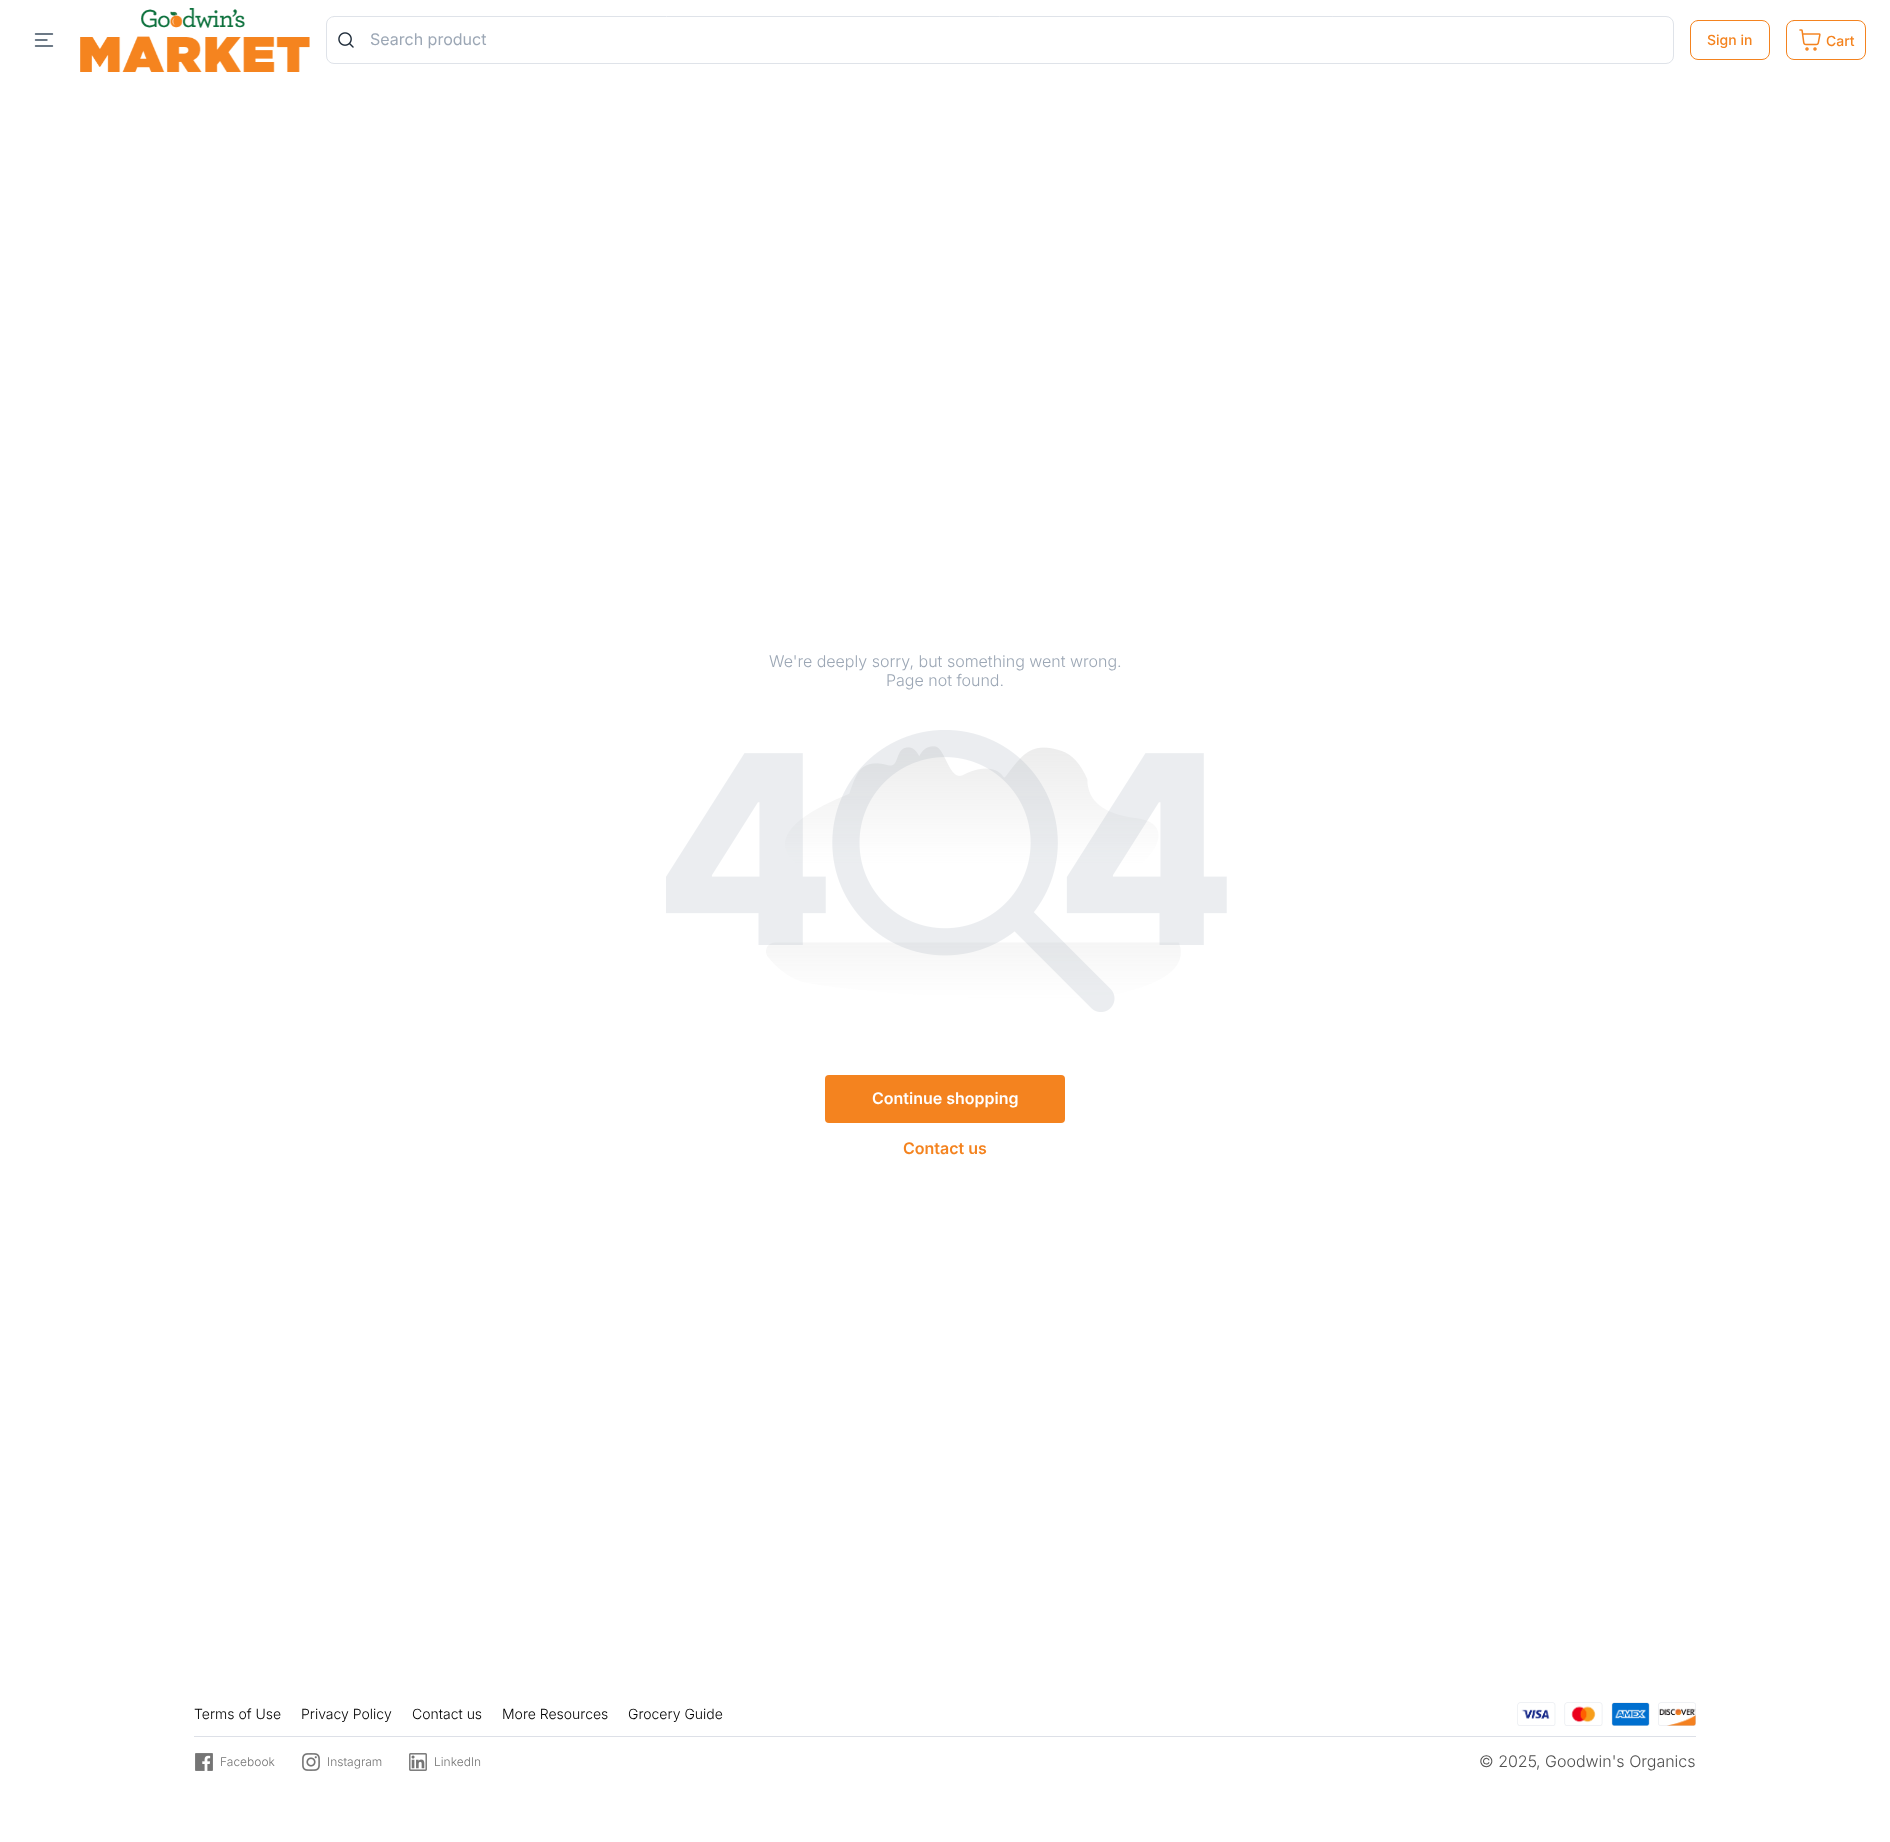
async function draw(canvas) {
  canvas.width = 1890;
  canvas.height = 1842;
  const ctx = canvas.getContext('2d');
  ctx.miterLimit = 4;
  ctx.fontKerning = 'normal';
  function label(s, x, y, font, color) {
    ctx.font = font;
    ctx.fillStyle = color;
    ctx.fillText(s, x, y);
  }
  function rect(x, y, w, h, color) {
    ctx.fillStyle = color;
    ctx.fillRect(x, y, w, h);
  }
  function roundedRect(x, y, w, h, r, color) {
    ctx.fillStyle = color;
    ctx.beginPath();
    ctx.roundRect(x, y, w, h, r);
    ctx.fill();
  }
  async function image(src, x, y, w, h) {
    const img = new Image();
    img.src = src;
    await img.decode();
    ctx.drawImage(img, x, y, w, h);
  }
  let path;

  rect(0, 0, 1890, 1842, '#fff');
  path = new Path2D('M35.5 40H47M35.5 34H52.5M35.5 46H52.5');
  ctx.strokeStyle = '#3c4d5f';
  ctx.lineWidth = 1.4;
  ctx.lineCap = 'round';
  ctx.lineJoin = 'round';
  ctx.stroke(path);
  await image('assets/img1.png', 80, 8, 230, 64);
  ctx.beginPath();
  ctx.roundRect(326.5, 16.5, 1347, 47, 7.5);
  ctx.strokeStyle = '#dfe3e9';
  ctx.lineWidth = 1;
  ctx.lineJoin = 'miter';
  ctx.stroke();
  await image('assets/img2.png', 338, 32, 16, 16);
  label('Search product', 370, 45, '16px Inter', '#9ca7b5');
  ctx.beginPath();
  ctx.roundRect(1690.5, 20.5, 79, 39, 7.5);
  ctx.strokeStyle = '#f4831f';
  ctx.stroke();
  label('Sign in', 1707, 45, '500 14px Inter', '#f4831f');
  ctx.beginPath();
  ctx.roundRect(1786.5, 20.5, 79, 39, 7.5);
  ctx.stroke();
  await image('assets/img3.png', 1799, 29, 22, 22);
  label('Cart', 1826, 46, '500 14px Inter', '#f4831f');
  label('We\'re deeply sorry, but something went wrong.', 769, 667, '300 16px Inter', '#9ca7b5');
  label('Page not found.', 886, 686, '300 16px Inter', '#9ca7b5');
  await image('assets/img4.png', 666, 730, 561, 282);
  roundedRect(825, 1075, 240, 48, 4, '#f4831f');
  label('Continue shopping', 872, 1104, '600 16px Inter', '#fff');
  label('Contact us', 903, 1154, '600 16px Inter', '#f4831f');
  rect(194, 1736, 1502, 1, '#dde0e7');
  label('Terms of Use', 194, 1719, '300 14px Inter', '#000');
  label('Privacy Policy', 301, 1719, '300 14px Inter', '#000');
  label('Contact us', 412, 1719, '300 14px Inter', '#000');
  label('More Resources', 502, 1719, '300 14px Inter', '#000');
  label('Grocery Guide', 628, 1719, '300 14px Inter', '#000');
  await image('assets/img5.png', 1517, 1702, 39, 24);
  await image('assets/img6.png', 1564, 1702, 39, 24);
  await image('assets/img7.png', 1611, 1702, 39, 24);
  await image('assets/img8.png', 1658, 1702, 38, 24);
  await image('assets/img9.png', 195, 1753, 18, 18);
  label('Facebook', 220, 1766, '300 12px Inter', '#757575');
  await image('assets/img10.png', 302, 1753, 18, 18);
  label('Instagram', 327, 1766, '300 12px Inter', '#757575');
  await image('assets/img11.png', 409, 1753, 18, 18);
  label('LinkedIn', 434, 1766, '300 12px Inter', '#757575');
  label('© 2025', 1479, 1767, '300 16px Inter', '#505050');
  label(', Goodwin\'s Organics', 1536, 1767, '300 16px Inter', '#505050');
}

draw(document.querySelector('canvas'));
